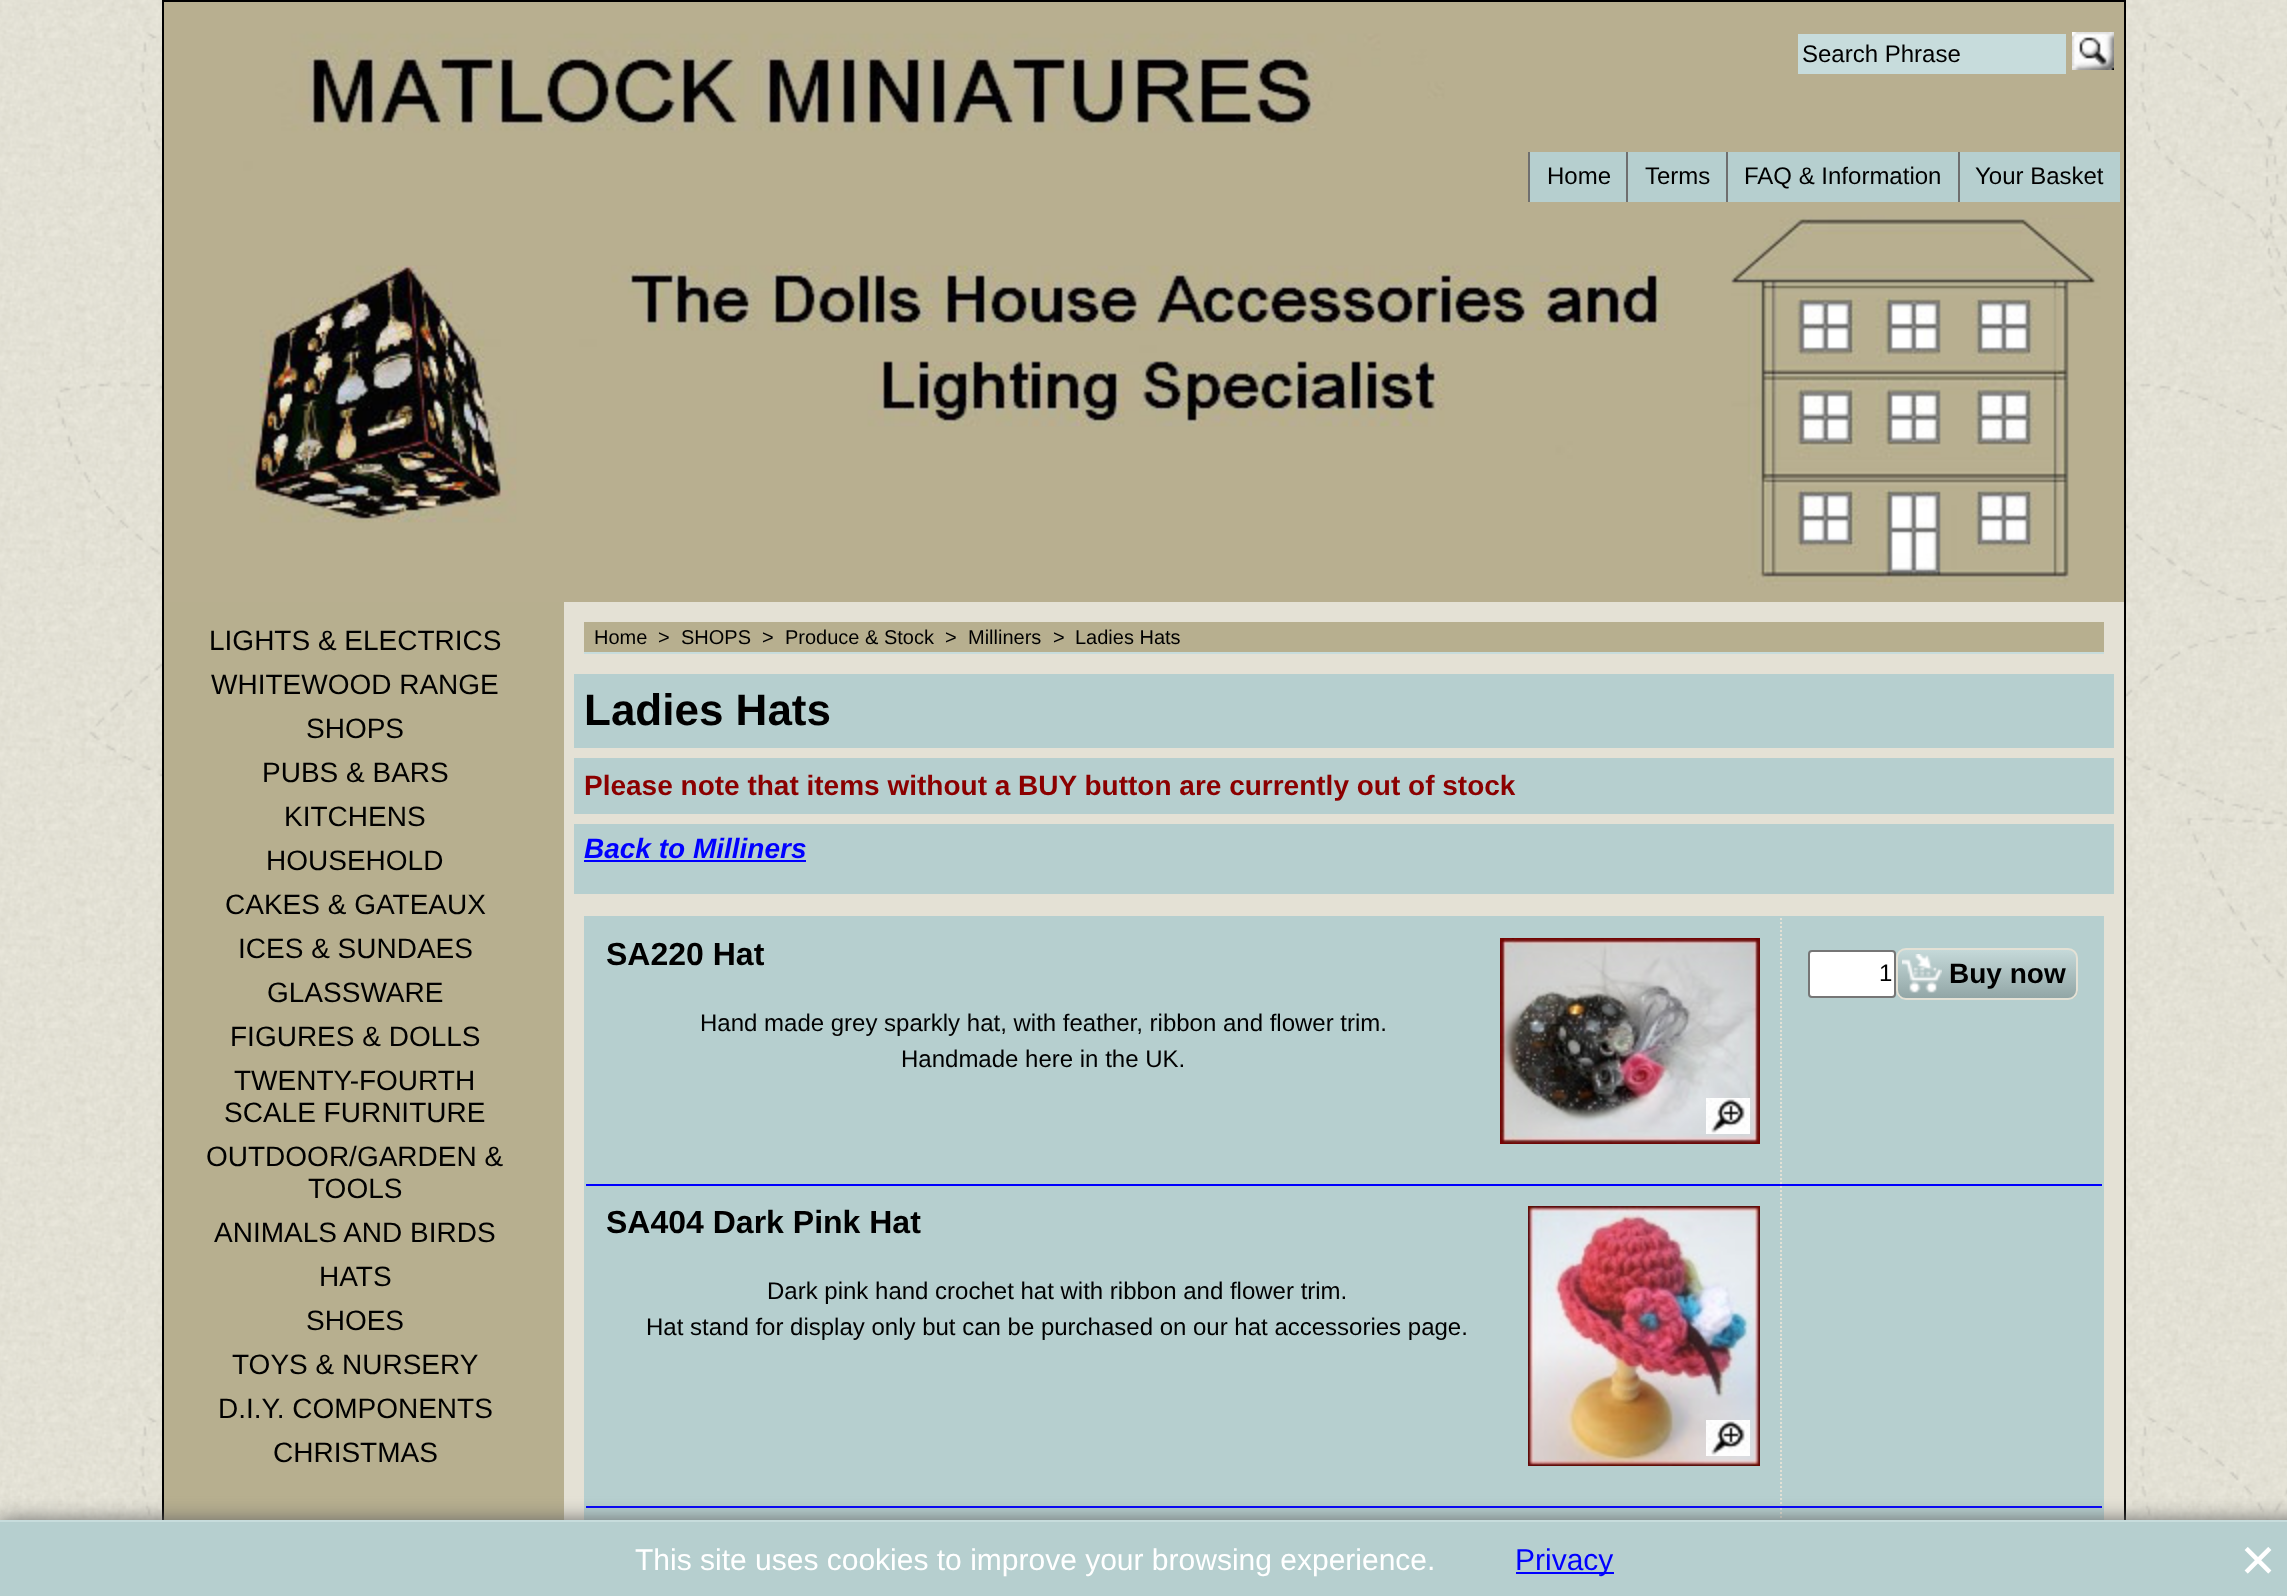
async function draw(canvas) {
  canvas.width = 2287;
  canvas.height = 1596;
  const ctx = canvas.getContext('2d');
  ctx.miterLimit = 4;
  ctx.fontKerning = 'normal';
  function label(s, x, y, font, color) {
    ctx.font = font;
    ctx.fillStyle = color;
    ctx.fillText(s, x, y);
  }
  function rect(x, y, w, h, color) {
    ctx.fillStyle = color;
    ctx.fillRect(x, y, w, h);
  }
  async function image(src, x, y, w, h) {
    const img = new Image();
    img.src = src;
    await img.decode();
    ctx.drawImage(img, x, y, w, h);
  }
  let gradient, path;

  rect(0, 0, 2287, 1596, '#fff');
  await image('assets/img1.png', 0, 0, 2287, 1520);
  ctx.strokeStyle = '#000';
  ctx.lineWidth = 2;
  ctx.strokeRect(163, 1, 1962, 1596);
  await image('assets/img2.png', 164, 2, 1960, 213);
  rect(1798, 34, 268, 40, '#c7dcdc');
  label('Search Phrase', 1802, 62, '24px Liberation Sans', '#000');
  await image('assets/img3.png', 2072, 32, 42, 38);
  rect(1530, 152, 96, 50, '#b6cfcf');
  rect(1528, 152, 2, 50, '#6f6f6f');
  rect(1628, 152, 98, 50, '#b6cfcf');
  rect(1626, 152, 2, 50, '#6f6f6f');
  rect(1728, 152, 230, 50, '#b6cfcf');
  rect(1726, 152, 2, 50, '#6f6f6f');
  rect(1960, 152, 160, 50, '#b6cfcf');
  rect(1958, 152, 2, 50, '#6f6f6f');
  label('Home', 1547, 184, '24px Liberation Sans', '#000');
  label('Terms', 1645, 184, '24px Liberation Sans', '#000');
  label('FAQ & Information', 1744, 184, '24px Liberation Sans', '#000');
  label('Your Basket', 1975, 184, '24px Liberation Sans', '#000');
  await image('assets/img4.png', 164, 215, 1960, 387);
  rect(164, 602, 400, 918, '#b7af8f');
  label('LIGHTS & ELECTRICS', 209, 650, '28px Liberation Sans', '#000');
  label('WHITEWOOD RANGE', 211, 694, '28px Liberation Sans', '#000');
  label('SHOPS', 306, 738, '28px Liberation Sans', '#000');
  label('PUBS & BARS', 262, 782, '28px Liberation Sans', '#000');
  label('KITCHENS', 284, 826, '28px Liberation Sans', '#000');
  label('HOUSEHOLD', 266, 870, '28px Liberation Sans', '#000');
  label('CAKES & GATEAUX', 225, 914, '28px Liberation Sans', '#000');
  label('ICES & SUNDAES', 238, 958, '28px Liberation Sans', '#000');
  label('GLASSWARE', 267, 1002, '28px Liberation Sans', '#000');
  label('FIGURES & DOLLS', 230, 1046, '28px Liberation Sans', '#000');
  label('TWENTY-FOURTH', 234, 1090, '28px Liberation Sans', '#000');
  label('SCALE FURNITURE', 224, 1122, '28px Liberation Sans', '#000');
  label('OUTDOOR/GARDEN &', 206, 1166, '28px Liberation Sans', '#000');
  label('TOOLS', 308, 1198, '28px Liberation Sans', '#000');
  label('ANIMALS AND BIRDS', 214, 1242, '28px Liberation Sans', '#000');
  label('HATS', 319, 1286, '28px Liberation Sans', '#000');
  label('SHOES', 306, 1330, '28px Liberation Sans', '#000');
  label('TOYS & NURSERY', 232, 1374, '28px Liberation Sans', '#000');
  label('D.I.Y. COMPONENTS', 218, 1418, '28px Liberation Sans', '#000');
  label('CHRISTMAS', 273, 1462, '28px Liberation Sans', '#000');
  rect(564, 602, 1560, 918, '#e4e1d5');
  rect(584, 622, 1520, 30, '#b7af8f');
  rect(584, 652, 1520, 2, '#c7dcdc');
  label('Home', 594, 644, '20px Liberation Sans', '#000');
  label('>', 658, 644, '20px Liberation Sans', '#000');
  label('SHOPS', 681, 644, '20px Liberation Sans', '#000');
  label('>', 762, 644, '20px Liberation Sans', '#000');
  label('Produce & Stock', 785, 644, '20px Liberation Sans', '#000');
  label('>', 945, 644, '20px Liberation Sans', '#000');
  label('Milliners', 968, 644, '20px Liberation Sans', '#000');
  label('>', 1053, 644, '20px Liberation Sans', '#000');
  label('Ladies Hats', 1075, 644, '20px Liberation Sans', '#000');
  rect(574, 674, 1540, 74, '#b6cfcf');
  label('Ladies Hats', 584, 725, 'bold 44px Liberation Sans', '#000');
  rect(574, 758, 1540, 56, '#b6cfcf');
  label('Please note that items without a BUY button are currently out of stock', 584, 795, 'bold 28px Liberation Sans', '#8b0000');
  rect(574, 824, 1540, 70, '#b6cfcf');
  label('Back to Milliners', 584, 858, 'italic bold 28px Liberation Sans', '#00f');
  rect(584, 860, 222, 2, '#00f');
  rect(584, 916, 1520, 604, '#b6cfcf');
  path = new Path2D('M1781 918V1184');
  ctx.strokeStyle = '#e4e1d5';
  ctx.setLineDash([2, 2]);
  ctx.stroke(path);
  label('SA220 Hat', 606, 965, 'bold 32px Liberation Sans', '#000');
  await image('assets/img5.png', 1500, 938, 260, 206);
  await image('assets/img6.png', 1706, 1098, 44, 36);
  label('Hand made grey sparkly hat, with feather, ribbon and flower trim.', 700, 1031, '24px Liberation Sans', '#000');
  label('Handmade here in the UK.', 901, 1067, '24px Liberation Sans', '#000');
  ctx.fillStyle = '#fff';
  ctx.beginPath();
  ctx.roundRect(1809, 951, 86, 46, 3);
  ctx.fill();
  ctx.strokeStyle = '#767676';
  ctx.setLineDash([]);
  ctx.stroke();
  label('1', 1879, 981, '24px Liberation Sans', '#000');
  ctx.save();
  ctx.beginPath();
  ctx.roundRect(1896, 948, 182, 52, 10);
  ctx.clip();
  gradient = ctx.createLinearGradient(1898, 950, 1898, 998);
  gradient.addColorStop(0, '#c5d9d9');
  gradient.addColorStop(1, '#92a6a6');
  ctx.fillStyle = gradient;
  ctx.fillRect(1896, 950, 182, 48);
  ctx.restore();
  ctx.beginPath();
  ctx.roundRect(1897, 949, 180, 50, 9);
  ctx.strokeStyle = '#e4e1d5';
  ctx.stroke();
  await image('assets/img7.png', 1902, 954, 40, 39);
  label('Buy now', 1949, 983, 'bold 28px Liberation Sans', '#000');
  rect(586, 1184, 1516, 2, '#00f');
  path = new Path2D('M1781 1186V1506');
  ctx.setLineDash([2, 2]);
  ctx.stroke(path);
  label('SA404 Dark Pink Hat', 606, 1233, 'bold 32px Liberation Sans', '#000');
  await image('assets/img8.png', 1528, 1206, 232, 260);
  await image('assets/img6.png', 1706, 1420, 44, 36);
  label('Dark pink hand crochet hat with ribbon and flower trim.', 767, 1299, '24px Liberation Sans', '#000');
  label('Hat stand for display only but can be purchased on our hat accessories page.', 646, 1335, '24px Liberation Sans', '#000');
  rect(586, 1506, 1516, 2, '#00f');
  path = new Path2D('M1781 1508V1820');
  ctx.stroke(path);
  ctx.fillStyle = '#666';
  ctx.filter = 'blur(10px)';
  ctx.beginPath();
  ctx.rect(0, 1520, 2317, 76);
  ctx.fill();
  ctx.filter = 'none';
  rect(0, 1522, 2287, 74, '#b6cfcf');
  rect(0, 1520, 2287, 2, '#c7dcdc');
  label('This site uses cookies to improve your browsing experience.', 635, 1570, '30px Liberation Sans', '#fff');
  rect(1516, 1572, 98, 2, '#00f');
  label('Privacy', 1515, 1570, '30px Liberation Sans', '#00f');
  await image('assets/img9.png', 2244, 1547, 28, 27);
}

draw(document.querySelector('canvas'));
